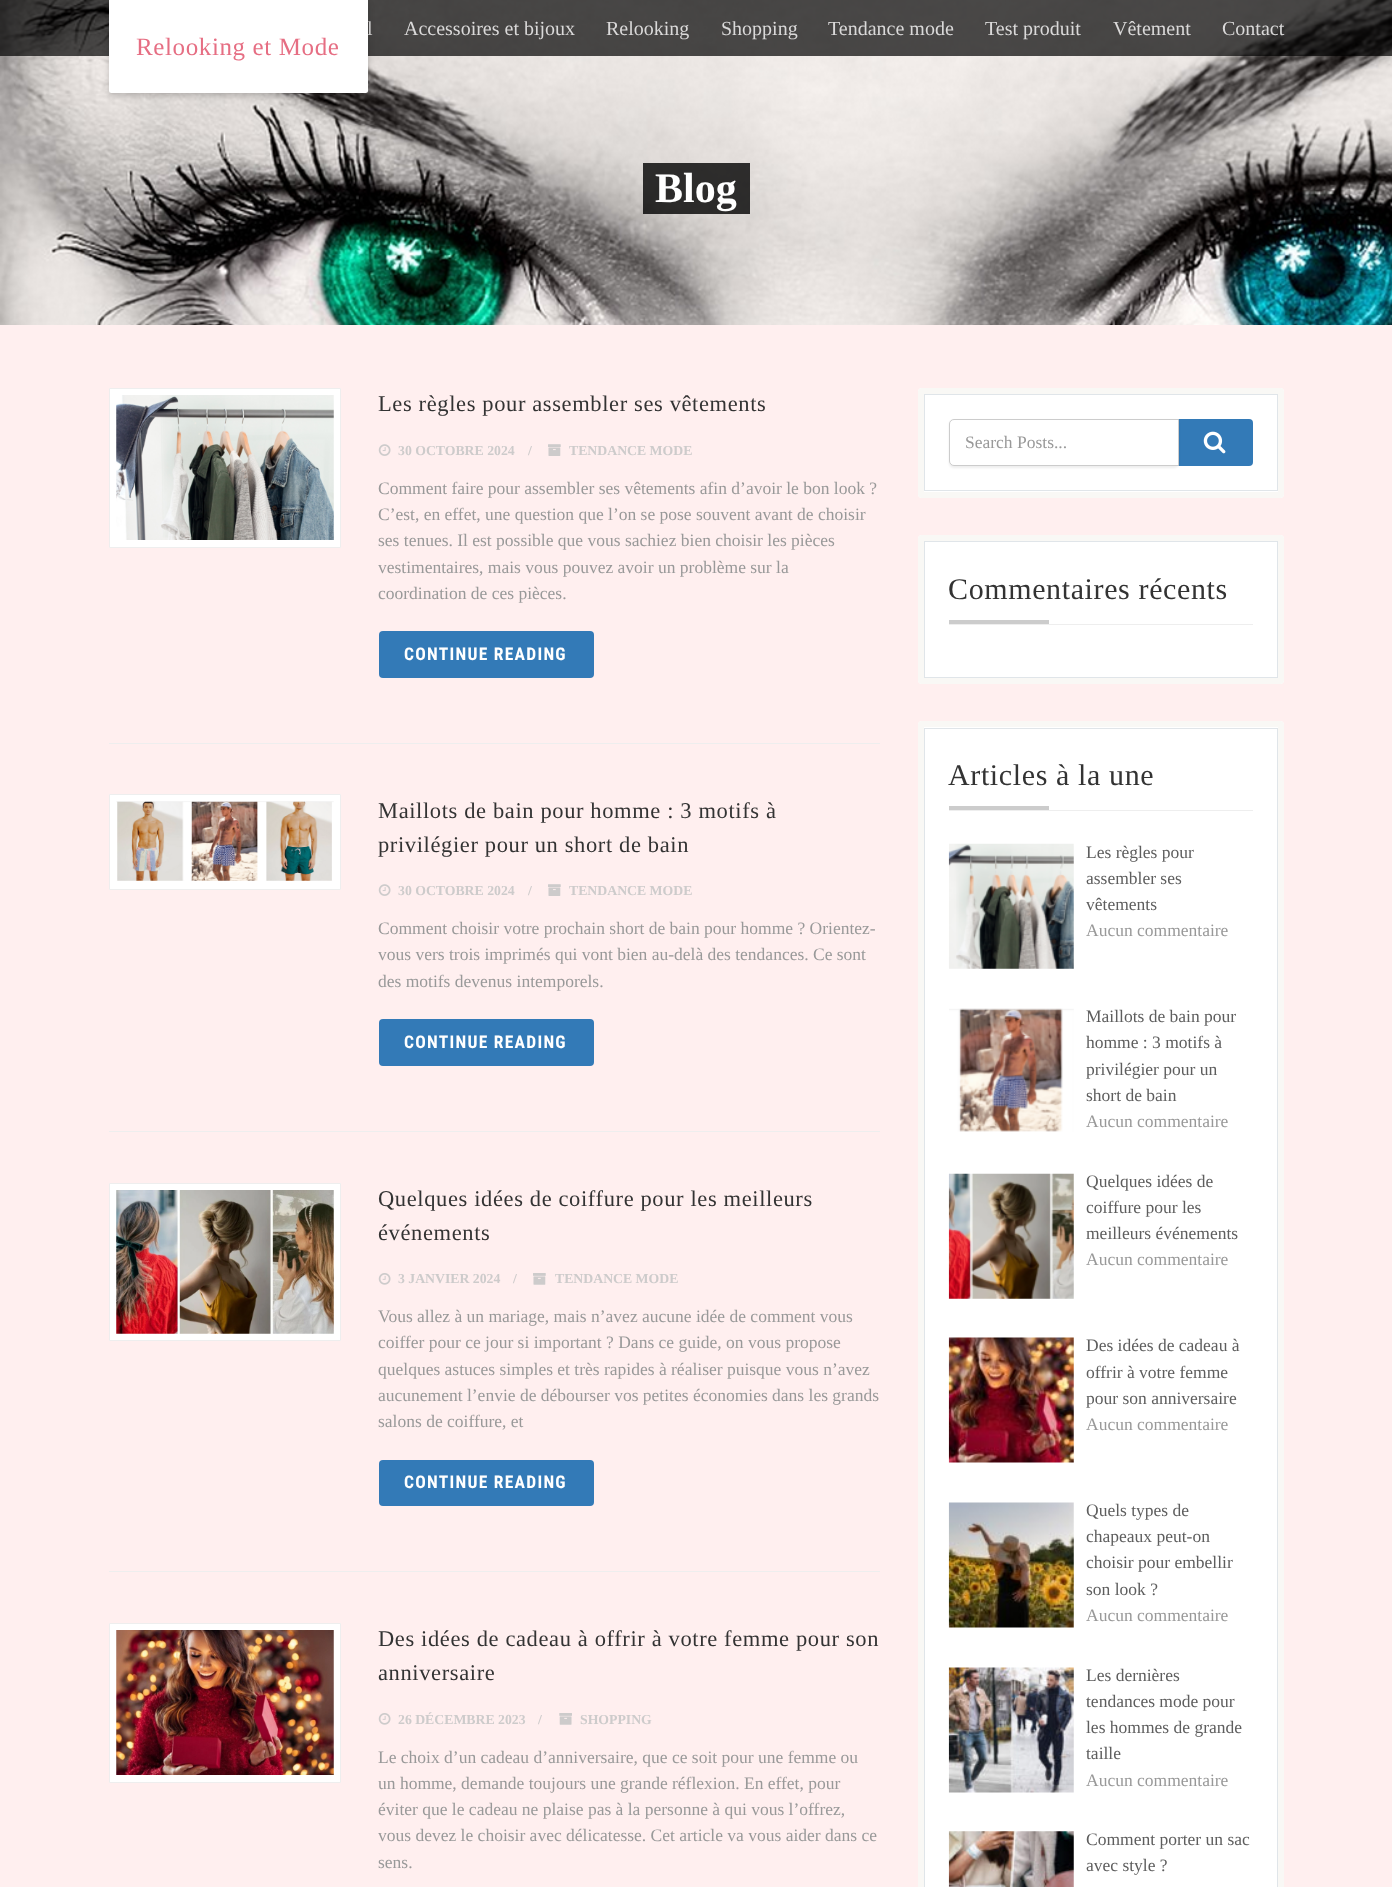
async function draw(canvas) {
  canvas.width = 1392;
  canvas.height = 1887;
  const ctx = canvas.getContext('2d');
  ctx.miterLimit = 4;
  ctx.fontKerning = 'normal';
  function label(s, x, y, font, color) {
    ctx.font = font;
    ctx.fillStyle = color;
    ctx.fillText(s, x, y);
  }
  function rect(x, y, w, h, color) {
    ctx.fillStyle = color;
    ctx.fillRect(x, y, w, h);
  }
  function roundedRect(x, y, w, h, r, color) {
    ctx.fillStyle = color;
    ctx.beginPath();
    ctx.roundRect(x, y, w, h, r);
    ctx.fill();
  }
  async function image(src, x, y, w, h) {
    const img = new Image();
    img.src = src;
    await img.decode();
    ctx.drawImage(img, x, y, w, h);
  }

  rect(0, 0, 1392, 1887, '#ffefef');
  await image('assets/img1.png', 0, 0, 1392, 325);
  rect(0, 0, 1392, 56, '#000000b3');
  label('l', 367, 35, '20px Liberation Serif', '#dad9d9');
  label('Accessoires et bijoux', 404, 35, '20px Liberation Serif', '#dad9d9');
  label('Relooking', 606, 35, '20px Liberation Serif', '#dad9d9');
  label('Shopping', 721, 35, '20px Liberation Serif', '#dad9d9');
  label('Tendance mode', 828, 35, '20px Liberation Serif', '#dad9d9');
  label('Test produit', 985, 35, '20px Liberation Serif', '#dad9d9');
  label('Vêtement', 1113, 35, '20px Liberation Serif', '#dad9d9');
  label('Contact', 1222, 35, '20px Liberation Serif', '#dad9d9');
  ctx.fillStyle = '#00000033';
  ctx.filter = 'blur(3px)';
  ctx.beginPath();
  ctx.roundRect(109, 4, 259, 92, 2.5);
  ctx.fill();
  ctx.filter = 'none';
  ctx.fillStyle = '#fff';
  ctx.beginPath();
  ctx.roundRect(109, 0, 259, 93, [0, 0, 2.5, 2.5]);
  ctx.fill();
  ctx.letterSpacing = '0.62px';
  label('Relooking et Mode', 136, 55, '25px Liberation Serif', '#e66e83');
  rect(643, 163, 107, 51, '#000000cc');
  ctx.letterSpacing = '0px';
  label('Blog', 655, 202, 'bold 42px Liberation Serif', '#fff');
  rect(109, 743, 771, 1, '#eee');
  ctx.fillStyle = '#fff';
  ctx.beginPath();
  ctx.rect(109.5, 388.5, 231, 159);
  ctx.fill();
  ctx.strokeStyle = '#eee';
  ctx.stroke();
  await image('assets/img2.png', 116, 395, 218, 145);
  ctx.letterSpacing = '0.62px';
  label('Les règles pour assembler ses vêtements', 378, 411, '22.5px Liberation Serif', '#333');
  await image('assets/img3.png', 378, 444, 13, 12);
  ctx.letterSpacing = '0px';
  label('30 OCTOBRE 2024', 398, 455, 'bold 13.75px Liberation Serif', '#cdcbcb');
  label('/', 528, 455, 'bold 13.75px Liberation Serif', '#cdcbcb');
  await image('assets/img4.png', 548, 444, 13, 12);
  label('TENDANCE MODE', 569, 455, 'bold 13.75px Liberation Serif', '#cdcbcb');
  label('Comment faire pour assembler ses vêtements afin d’avoir le bon look ?', 378, 494, '17.5px Liberation Serif', '#999');
  label('C’est, en effet, une question que l’on se pose souvent avant de choisir', 378, 520, '17.5px Liberation Serif', '#999');
  label('ses tenues. Il est possible que vous sachiez bien choisir les pièces', 378, 546, '17.5px Liberation Serif', '#999');
  label('vestimentaires, mais vous pouvez avoir un problème sur la', 378, 573, '17.5px Liberation Serif', '#999');
  label('coordination de ces pièces.', 378, 599, '17.5px Liberation Serif', '#999');
  roundedRect(379, 631, 215, 47, 4, '#337ab7');
  ctx.letterSpacing = '1.25px';
  label('CONTINUE READING', 404, 660, 'bold 17.5px Roboto Condensed', '#fff');
  rect(109, 1131, 771, 1, '#eee');
  ctx.fillStyle = '#fff';
  ctx.beginPath();
  ctx.rect(109.5, 794.5, 231, 95);
  ctx.fill();
  ctx.stroke();
  await image('assets/img5.png', 116, 801, 218, 80);
  ctx.letterSpacing = '0.62px';
  label('Maillots de bain pour homme : 3 motifs à', 378, 818, '22.5px Liberation Serif', '#333');
  label('privilégier pour un short de bain', 378, 852, '22.5px Liberation Serif', '#333');
  await image('assets/img3.png', 378, 884, 13, 12);
  ctx.letterSpacing = '0px';
  label('30 OCTOBRE 2024', 398, 895, 'bold 13.75px Liberation Serif', '#cdcbcb');
  label('/', 528, 895, 'bold 13.75px Liberation Serif', '#cdcbcb');
  await image('assets/img4.png', 548, 884, 13, 12);
  label('TENDANCE MODE', 569, 895, 'bold 13.75px Liberation Serif', '#cdcbcb');
  label('Comment choisir votre prochain short de bain pour homme ? Orientez-', 378, 934, '17.5px Liberation Serif', '#999');
  label('vous vers trois imprimés qui vont bien au-delà des tendances. Ce sont', 378, 960, '17.5px Liberation Serif', '#999');
  label('des motifs devenus intemporels.', 378, 987, '17.5px Liberation Serif', '#999');
  roundedRect(379, 1019, 215, 47, 4, '#337ab7');
  ctx.letterSpacing = '1.25px';
  label('CONTINUE READING', 404, 1048, 'bold 17.5px Roboto Condensed', '#fff');
  rect(109, 1571, 771, 1, '#eee');
  ctx.fillStyle = '#fff';
  ctx.beginPath();
  ctx.rect(109.5, 1183.5, 231, 157);
  ctx.fill();
  ctx.stroke();
  await image('assets/img6.png', 116, 1190, 218, 144);
  ctx.letterSpacing = '0.62px';
  label('Quelques idées de coiffure pour les meilleurs', 378, 1206, '22.5px Liberation Serif', '#333');
  label('événements', 378, 1240, '22.5px Liberation Serif', '#333');
  await image('assets/img7.png', 378, 1273, 13, 12);
  ctx.letterSpacing = '0px';
  label('3 JANVIER 2024', 398, 1283, 'bold 13.75px Liberation Serif', '#cdcbcb');
  label('/', 513, 1283, 'bold 13.75px Liberation Serif', '#cdcbcb');
  await image('assets/img8.png', 533, 1273, 13, 12);
  label('TENDANCE MODE', 555, 1283, 'bold 13.75px Liberation Serif', '#cdcbcb');
  label('Vous allez à un mariage, mais n’avez aucune idée de comment vous', 378, 1322, '17.5px Liberation Serif', '#999');
  label('coiffer pour ce jour si important ? Dans ce guide, on vous propose', 378, 1348, '17.5px Liberation Serif', '#999');
  label('quelques astuces simples et très rapides à réaliser puisque vous n’avez', 378, 1375, '17.5px Liberation Serif', '#999');
  label('aucunement l’envie de débourser vos petites économies dans les grands', 378, 1401, '17.5px Liberation Serif', '#999');
  label('salons de coiffure, et', 378, 1427, '17.5px Liberation Serif', '#999');
  roundedRect(379, 1460, 215, 46, 4, '#337ab7');
  ctx.letterSpacing = '1.25px';
  label('CONTINUE READING', 404, 1488, 'bold 17.5px Roboto Condensed', '#fff');
  ctx.beginPath();
  ctx.rect(109.5, 1623.5, 231, 159);
  ctx.fill();
  ctx.stroke();
  await image('assets/img9.png', 116, 1630, 218, 145);
  ctx.letterSpacing = '0.62px';
  label('Des idées de cadeau à offrir à votre femme pour son', 378, 1646, '22.5px Liberation Serif', '#333');
  label('anniversaire', 378, 1680, '22.5px Liberation Serif', '#333');
  await image('assets/img7.png', 378, 1713, 13, 12);
  ctx.letterSpacing = '0px';
  label('26 DÉCEMBRE 2023', 398, 1724, 'bold 13.75px Liberation Serif', '#cdcbcb');
  label('/', 538, 1724, 'bold 13.75px Liberation Serif', '#cdcbcb');
  await image('assets/img10.png', 559, 1713, 13, 12);
  label('SHOPPING', 580, 1724, 'bold 13.75px Liberation Serif', '#cdcbcb');
  label('Le choix d’un cadeau d’anniversaire, que ce soit pour une femme ou', 378, 1763, '17.5px Liberation Serif', '#999');
  label('un homme, demande toujours une grande réflexion. En effet, pour', 378, 1789, '17.5px Liberation Serif', '#999');
  label('éviter que le cadeau ne plaise pas à la personne à qui vous l’offrez,', 378, 1815, '17.5px Liberation Serif', '#999');
  label('vous devez le choisir avec délicatesse. Cet article va vous aider dans ce', 378, 1841, '17.5px Liberation Serif', '#999');
  label('sens.', 378, 1868, '17.5px Liberation Serif', '#999');
  roundedRect(918, 388, 366, 110, 4, '#fff');
  ctx.strokeStyle = '#e0e5e9';
  ctx.strokeRect(924.5, 394.5, 353, 96);
  ctx.beginPath();
  ctx.roundRect(921, 391, 360, 104, 1);
  ctx.strokeStyle = '#f9f8f5';
  ctx.lineWidth = 6;
  ctx.stroke();
  ctx.fillStyle = '#337ab7';
  ctx.beginPath();
  ctx.roundRect(1178, 419, 75, 47, [0, 4, 4, 0]);
  ctx.fill();
  ctx.fillStyle = '#00000012';
  ctx.filter = 'blur(1px)';
  ctx.beginPath();
  ctx.roundRect(949, 420, 230, 48, 5);
  ctx.fill();
  ctx.filter = 'none';
  ctx.fillStyle = '#fff';
  ctx.beginPath();
  ctx.roundRect(949.5, 419.5, 229, 46, [4.5, 0, 0, 4.5]);
  ctx.fill();
  ctx.strokeStyle = '#ccc';
  ctx.lineWidth = 1;
  ctx.stroke();
  label('Search Posts...', 965, 448, '17.5px Liberation Serif', '#999');
  await image('assets/img11.png', 1203, 431, 23, 23);
  roundedRect(918, 535, 366, 149, 4, '#fff');
  ctx.strokeStyle = '#e0e5e9';
  ctx.strokeRect(924.5, 541.5, 353, 136);
  ctx.beginPath();
  ctx.roundRect(921, 538, 360, 143, 1);
  ctx.strokeStyle = '#f9f8f5';
  ctx.lineWidth = 6;
  ctx.stroke();
  rect(949, 624, 304, 1, '#eee');
  ctx.letterSpacing = '0.62px';
  label('Commentaires récents', 948, 599, '30px Liberation Serif', '#333');
  rect(949, 620, 100, 4, '#ccc');
  roundedRect(918, 721, 366, 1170, 4, '#fff');
  ctx.strokeStyle = '#e0e5e9';
  ctx.lineWidth = 1;
  ctx.strokeRect(924.5, 728.5, 353, 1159);
  ctx.beginPath();
  ctx.roundRect(921, 724, 360, 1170, 1);
  ctx.strokeStyle = '#f9f8f5';
  ctx.lineWidth = 6;
  ctx.stroke();
  rect(949, 810, 304, 1, '#eee');
  label('Articles à la une', 948, 785, '30px Liberation Serif', '#333');
  rect(949, 806, 100, 4, '#ccc');
  await image('assets/img12.png', 948, 843, 126, 126);
  ctx.letterSpacing = '0px';
  label('Les règles pour', 1086, 858, '17.5px Liberation Serif', '#5e5e5e');
  label('assembler ses', 1086, 884, '17.5px Liberation Serif', '#5e5e5e');
  label('vêtements', 1086, 910, '17.5px Liberation Serif', '#5e5e5e');
  label('Aucun commentaire', 1086, 936, '17.5px Liberation Serif', '#999');
  await image('assets/img13.png', 949, 1008, 125, 124);
  label('Maillots de bain pour', 1086, 1022, '17.5px Liberation Serif', '#5e5e5e');
  label('homme : 3 motifs à', 1086, 1048, '17.5px Liberation Serif', '#5e5e5e');
  label('privilégier pour un', 1086, 1075, '17.5px Liberation Serif', '#5e5e5e');
  label('short de bain', 1086, 1101, '17.5px Liberation Serif', '#5e5e5e');
  label('Aucun commentaire', 1086, 1127, '17.5px Liberation Serif', '#999');
  await image('assets/img14.png', 948, 1173, 126, 126);
  label('Quelques idées de', 1086, 1187, '17.5px Liberation Serif', '#5e5e5e');
  label('coiffure pour les', 1086, 1213, '17.5px Liberation Serif', '#5e5e5e');
  label('meilleurs événements', 1086, 1239, '17.5px Liberation Serif', '#5e5e5e');
  label('Aucun commentaire', 1086, 1265, '17.5px Liberation Serif', '#999');
  await image('assets/img15.png', 948, 1337, 126, 126);
  label('Des idées de cadeau à', 1086, 1351, '17.5px Liberation Serif', '#5e5e5e');
  label('offrir à votre femme', 1086, 1378, '17.5px Liberation Serif', '#5e5e5e');
  label('pour son anniversaire', 1086, 1404, '17.5px Liberation Serif', '#5e5e5e');
  label('Aucun commentaire', 1086, 1430, '17.5px Liberation Serif', '#999');
  await image('assets/img16.png', 948, 1502, 126, 126);
  label('Quels types de', 1086, 1516, '17.5px Liberation Serif', '#5e5e5e');
  label('chapeaux peut-on', 1086, 1542, '17.5px Liberation Serif', '#5e5e5e');
  label('choisir pour embellir', 1086, 1568, '17.5px Liberation Serif', '#5e5e5e');
  label('son look ?', 1086, 1595, '17.5px Liberation Serif', '#5e5e5e');
  label('Aucun commentaire', 1086, 1621, '17.5px Liberation Serif', '#999');
  await image('assets/img17.png', 948, 1667, 126, 126);
  label('Les dernières', 1086, 1681, '17.5px Liberation Serif', '#5e5e5e');
  label('tendances mode pour', 1086, 1707, '17.5px Liberation Serif', '#5e5e5e');
  label('les hommes de grande', 1086, 1733, '17.5px Liberation Serif', '#5e5e5e');
  label('taille', 1086, 1759, '17.5px Liberation Serif', '#5e5e5e');
  label('Aucun commentaire', 1086, 1786, '17.5px Liberation Serif', '#999');
  await image('assets/img18.png', 948, 1831, 126, 56);
  label('Comment porter un sac', 1086, 1845, '17.5px Liberation Serif', '#5e5e5e');
  label('avec style ?', 1086, 1871, '17.5px Liberation Serif', '#5e5e5e');
}

draw(document.querySelector('canvas'));
